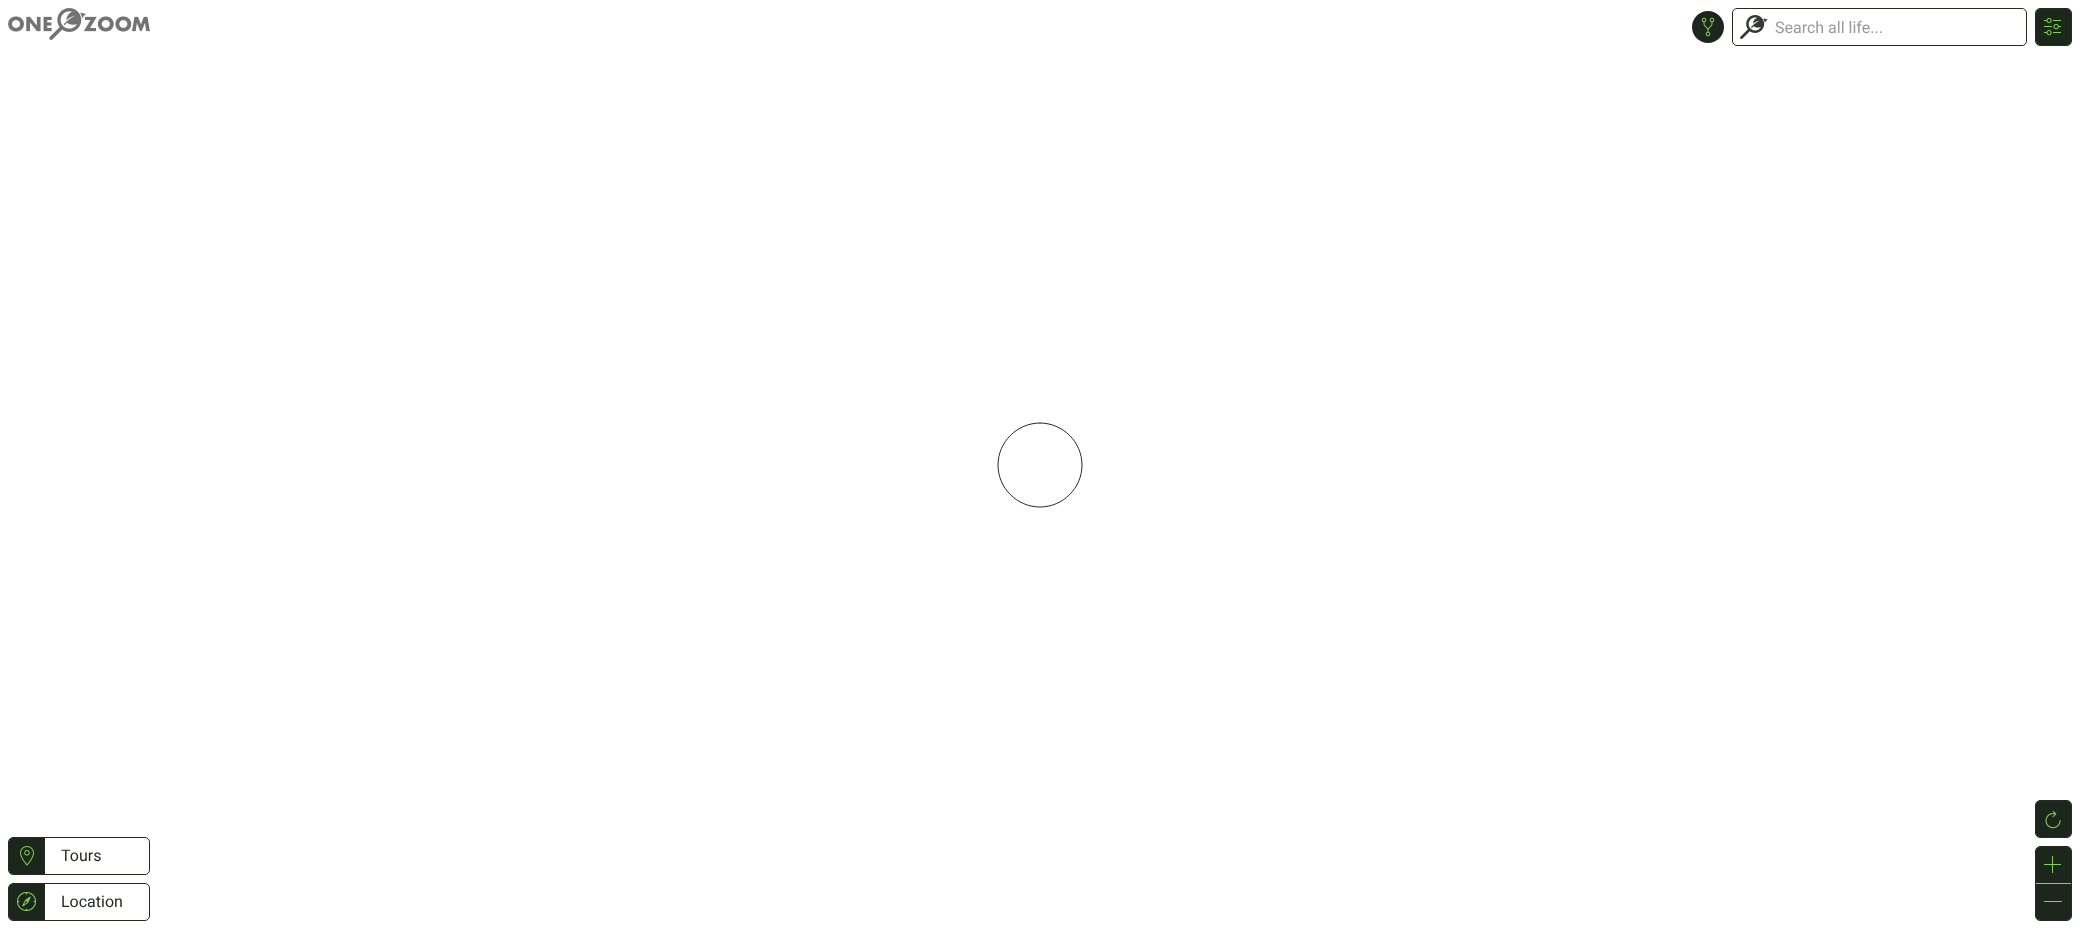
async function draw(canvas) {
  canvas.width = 2080;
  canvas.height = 929;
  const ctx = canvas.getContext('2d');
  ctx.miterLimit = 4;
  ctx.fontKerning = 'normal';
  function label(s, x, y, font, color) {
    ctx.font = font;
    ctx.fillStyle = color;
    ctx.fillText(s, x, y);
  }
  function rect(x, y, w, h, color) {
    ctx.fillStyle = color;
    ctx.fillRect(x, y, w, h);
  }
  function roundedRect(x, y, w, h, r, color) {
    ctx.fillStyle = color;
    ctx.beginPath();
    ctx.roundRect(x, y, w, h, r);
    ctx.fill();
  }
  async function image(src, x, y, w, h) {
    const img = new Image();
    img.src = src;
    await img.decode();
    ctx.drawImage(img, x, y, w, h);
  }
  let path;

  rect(0, 0, 2080, 929, '#fff');
  await image('assets/img1.png', 8, 8, 142, 32);
  ctx.fillStyle = '#1c261c';
  ctx.beginPath();
  ctx.arc(1708, 27, 16, 0, 2 * Math.PI);
  ctx.fill();
  await image('assets/img2.png', 1701, 17, 14, 20);
  ctx.beginPath();
  ctx.roundRect(1732.5, 8.5, 294, 37, 4.5);
  ctx.strokeStyle = '#242a22';
  ctx.stroke();
  await image('assets/img3.png', 1740, 15, 28, 24);
  label('Search all life...', 1775, 33, '16px Roboto', '#999');
  ctx.beginPath();
  ctx.roundRect(2035.5, 8.5, 36, 37, 4.5);
  ctx.stroke();
  roundedRect(2036, 9, 35, 36, 4, '#1c261c');
  await image('assets/img4.png', 2044, 17, 17, 19);
  path = new Path2D('M1040 423C1063 423 1082 442 1082 465C1082 488 1063 507 1040 507C1017 507 998 488 998 465C998 442 1017 423 1040 423');
  ctx.lineCap = 'round';
  ctx.stroke(path);
  ctx.beginPath();
  ctx.roundRect(8.5, 837.5, 141, 37, 4.5);
  ctx.stroke();
  ctx.beginPath();
  ctx.roundRect(9, 838, 36, 36, [4, 0, 0, 4]);
  ctx.fill();
  rect(44, 838, 1, 36, '#242a22');
  await image('assets/img5.png', 20, 846, 14, 20);
  label('Tours', 61, 861, '16px Roboto', '#242a22');
  ctx.beginPath();
  ctx.roundRect(8.5, 883.5, 141, 37, 4.5);
  ctx.stroke();
  ctx.fillStyle = '#1c261c';
  ctx.beginPath();
  ctx.roundRect(9, 884, 36, 36, [4, 0, 0, 4]);
  ctx.fill();
  rect(44, 884, 1, 36, '#242a22');
  await image('assets/img6.png', 17, 892, 20, 20);
  label('Location', 61, 907, '16px Roboto', '#242a22');
  ctx.beginPath();
  ctx.roundRect(2035.5, 800.5, 36, 37, 4.5);
  ctx.stroke();
  roundedRect(2036, 801, 35, 36, 4, '#1c261c');
  await image('assets/img7.png', 2045, 810, 16, 19);
  ctx.beginPath();
  ctx.roundRect(2035.5, 846.5, 36, 74, 4.5);
  ctx.stroke();
  ctx.beginPath();
  ctx.roundRect(2036, 847, 35, 36, [4, 4, 0, 0]);
  ctx.fill();
  rect(2052, 856, 1, 17, '#7fd14f');
  rect(2044, 864, 17, 1, '#7fd14f');
  ctx.fillStyle = '#1c261c';
  ctx.beginPath();
  ctx.roundRect(2036, 883, 35, 37, [0, 0, 4, 4]);
  ctx.fill();
  rect(2036, 883, 35, 1, '#7fd14f');
  rect(2044, 901, 18, 1, '#7fd14f');
}

draw(document.querySelector('canvas'));
